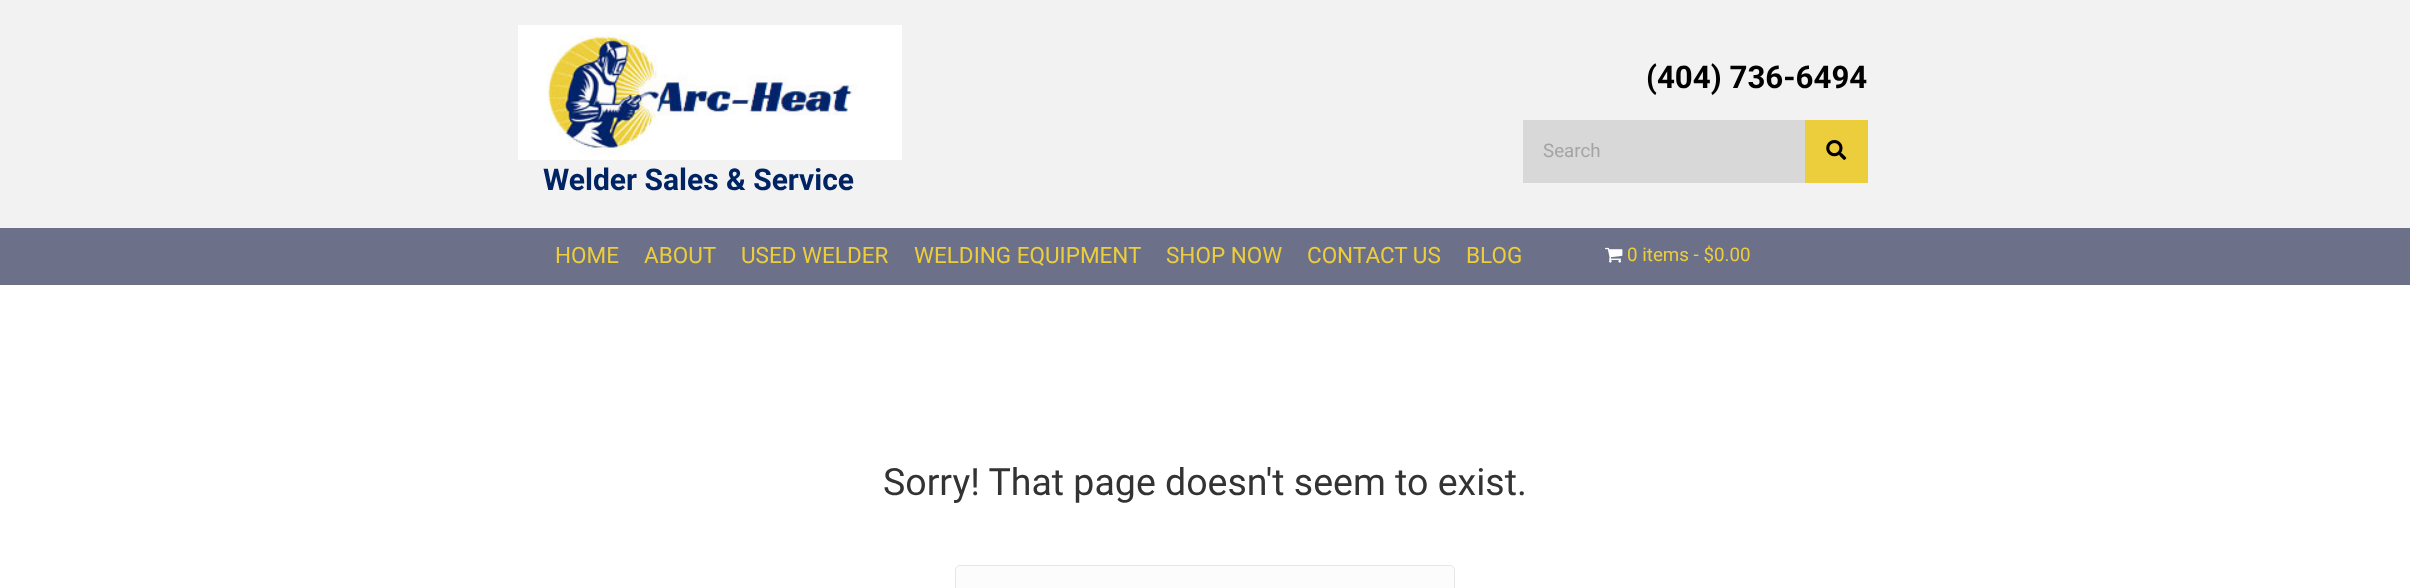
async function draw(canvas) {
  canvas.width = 2410;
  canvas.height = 588;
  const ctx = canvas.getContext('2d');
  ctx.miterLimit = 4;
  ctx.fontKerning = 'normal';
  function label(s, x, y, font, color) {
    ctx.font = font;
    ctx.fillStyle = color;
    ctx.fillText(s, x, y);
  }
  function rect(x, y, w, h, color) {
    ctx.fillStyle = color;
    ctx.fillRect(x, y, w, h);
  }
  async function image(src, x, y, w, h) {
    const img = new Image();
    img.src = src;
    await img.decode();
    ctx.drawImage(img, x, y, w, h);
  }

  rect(0, 0, 2410, 588, '#f2f2f2');
  label('(404) 736-6494', 1646, 88, 'bold 31.25px Roboto', '#000');
  rect(1523, 120, 282, 63, '#d8d8d8');
  label('Search', 1543, 157, '18.75px Roboto', '#a4a4a4');
  rect(1805, 120, 63, 63, '#ecce3c');
  await image('assets/img1.png', 1826, 140, 21, 20);
  await image('assets/img2.png', 518, 25, 384, 135);
  label('Welder Sales & Service', 543, 190, 'bold 30px Roboto', '#002363');
  rect(0, 228, 2410, 57, '#6c7089');
  label('HOME', 555, 263, '22.5px Roboto', '#ecce3c');
  label('ABOUT', 644, 263, '22.5px Roboto', '#ecce3c');
  label('USED WELDER', 741, 263, '22.5px Roboto', '#ecce3c');
  label('WELDING EQUIPMENT', 914, 263, '22.5px Roboto', '#ecce3c');
  label('SHOP NOW', 1166, 263, '22.5px Roboto', '#ecce3c');
  label('CONTACT US', 1307, 263, '22.5px Roboto', '#ecce3c');
  label('BLOG', 1466, 263, '22.5px Roboto', '#ecce3c');
  await image('assets/img3.png', 1605, 247, 18, 16);
  label('0 items - $0.00', 1627, 261, '18.75px Roboto', '#ecce3c');
  rect(0, 285, 2410, 303, '#fff');
  label('Sorry! That page doesn\'t seem to exist.', 883, 495, '37.5px Roboto', '#333');
  ctx.fillStyle = '#fcfcfc';
  ctx.beginPath();
  ctx.roundRect(955.5, 565.5, 499, 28, 4.5);
  ctx.fill();
  ctx.strokeStyle = '#e6e6e6';
  ctx.stroke();
}

draw(document.querySelector('canvas'));
